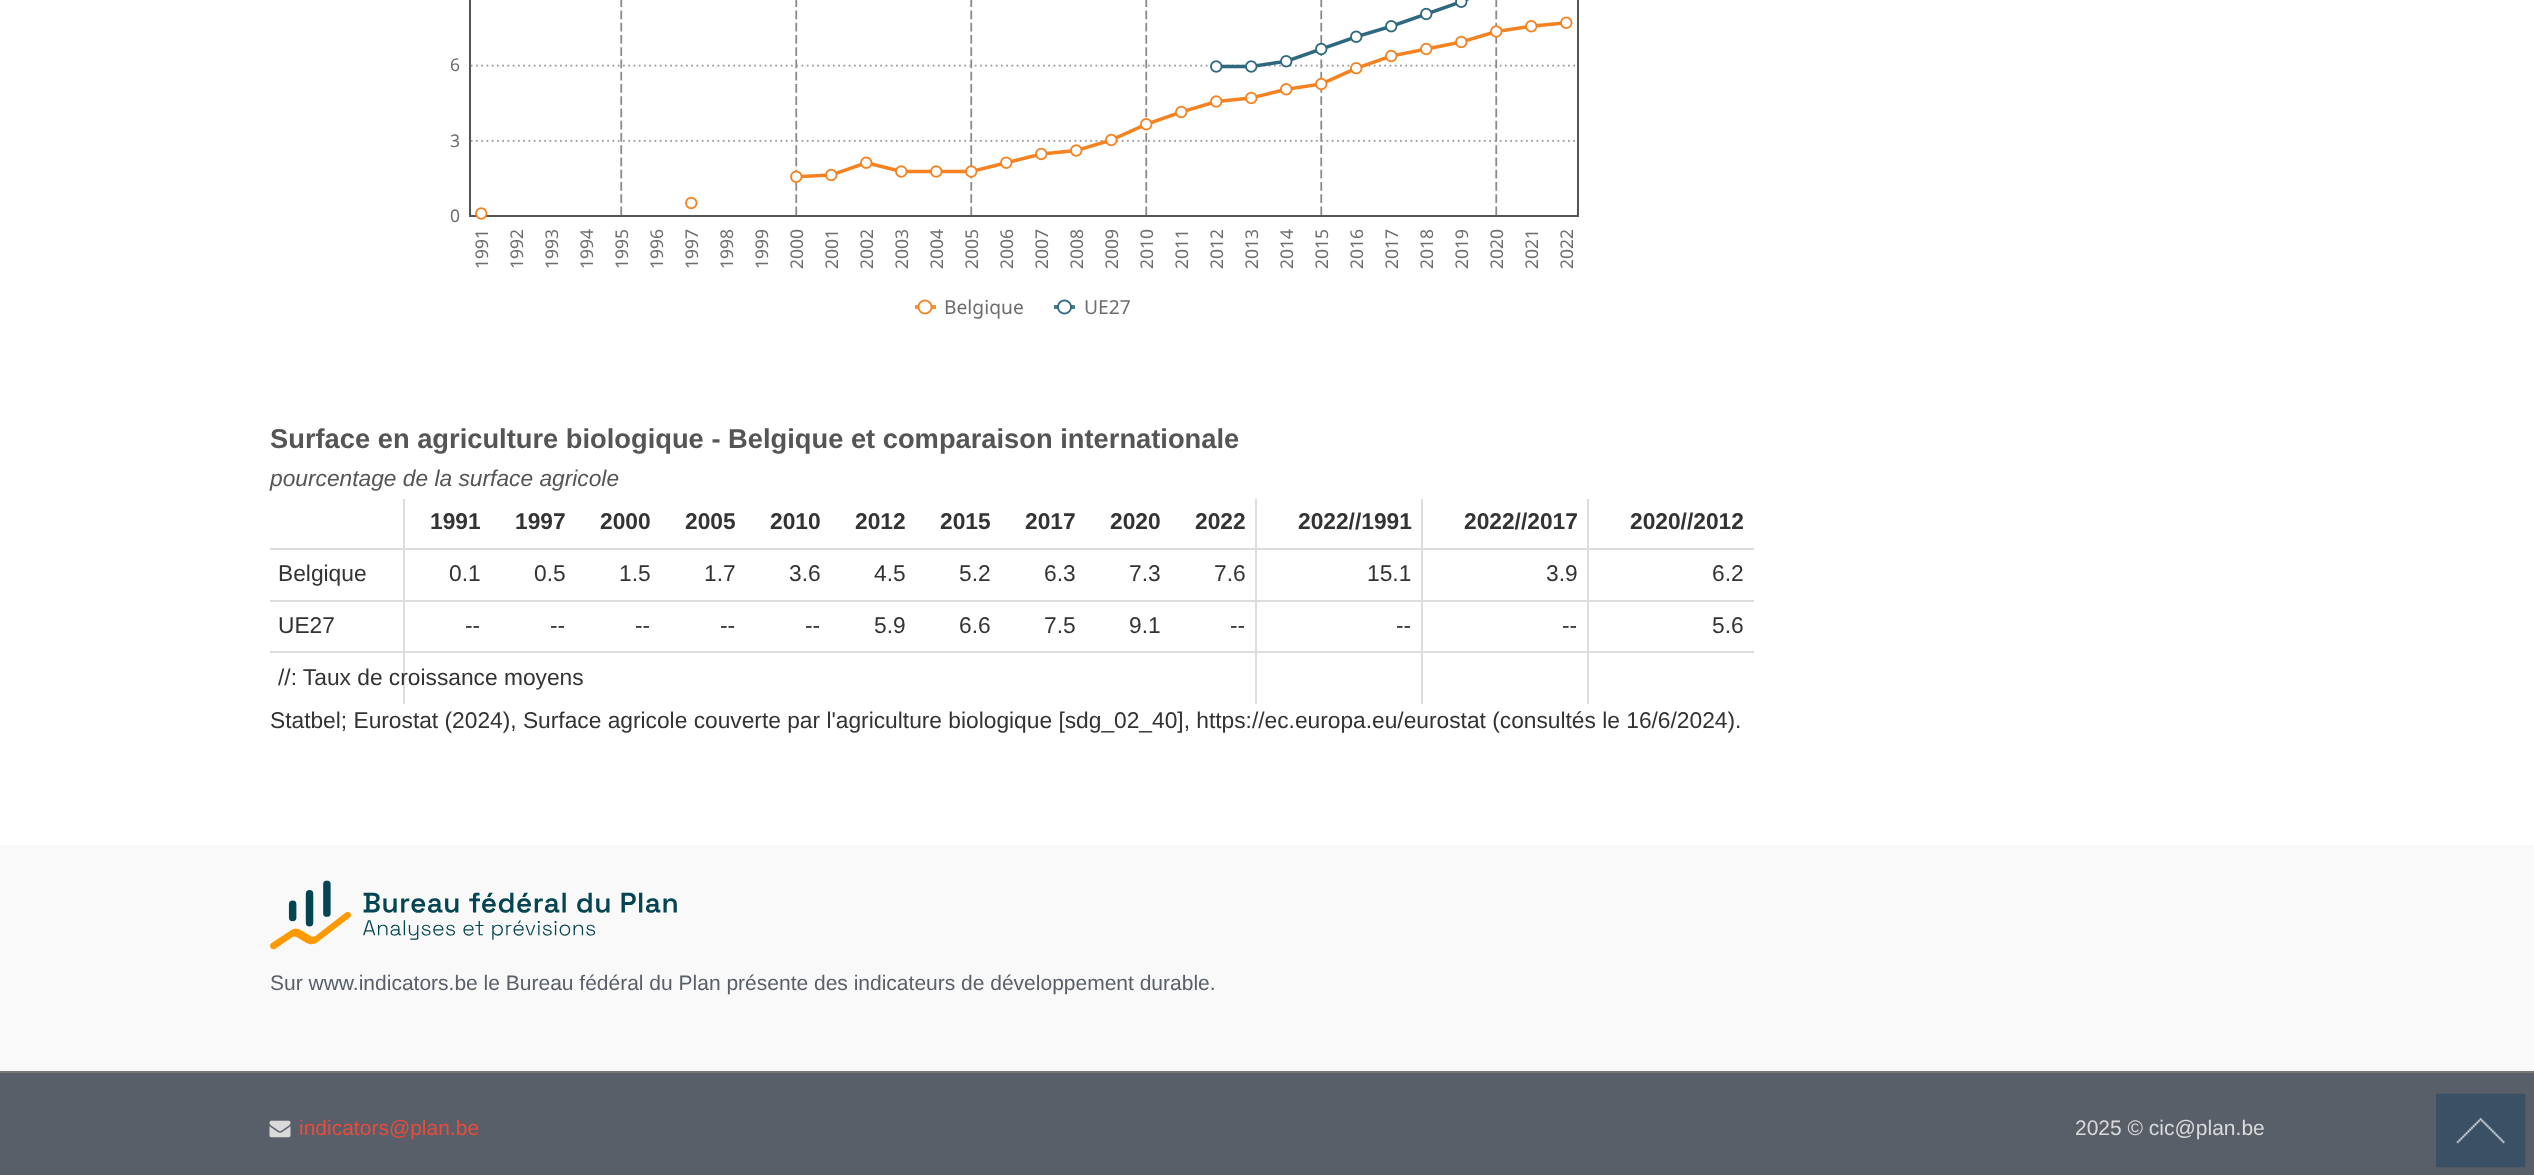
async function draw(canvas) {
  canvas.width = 2534;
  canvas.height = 1175;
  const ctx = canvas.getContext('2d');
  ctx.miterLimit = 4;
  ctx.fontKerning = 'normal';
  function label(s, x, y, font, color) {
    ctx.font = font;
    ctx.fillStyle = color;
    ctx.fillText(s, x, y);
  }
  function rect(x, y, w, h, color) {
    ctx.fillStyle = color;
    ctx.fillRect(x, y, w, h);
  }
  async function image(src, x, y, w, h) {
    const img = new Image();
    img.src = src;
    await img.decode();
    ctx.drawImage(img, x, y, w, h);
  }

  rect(0, 0, 2534, 1175, '#fff');
  label('6', 450, 71, '17.5px Noto Sans', '#6d6d6d');
  await image('assets/img1.png', 469, 0, 1110, 315);
  label('3', 450, 147, '17.5px Noto Sans', '#6d6d6d');
  label('0', 450, 222, '17.5px Noto Sans', '#6d6d6d');
  ctx.save();
  ctx.translate(488, 269);
  ctx.rotate(-90 * Math.PI / 180);
  ctx.fillText('1991', 0, 0);
  ctx.restore();
  ctx.save();
  ctx.translate(523, 269);
  ctx.rotate(-90 * Math.PI / 180);
  ctx.fillText('1992', 0, 0);
  ctx.restore();
  ctx.save();
  ctx.translate(558, 269);
  ctx.rotate(-90 * Math.PI / 180);
  ctx.fillText('1993', 0, 0);
  ctx.restore();
  ctx.save();
  ctx.translate(593, 269);
  ctx.rotate(-90 * Math.PI / 180);
  ctx.fillText('1994', 0, 0);
  ctx.restore();
  ctx.save();
  ctx.translate(628, 269);
  ctx.rotate(-90 * Math.PI / 180);
  ctx.fillText('1995', 0, 0);
  ctx.restore();
  ctx.save();
  ctx.translate(663, 269);
  ctx.rotate(-90 * Math.PI / 180);
  ctx.fillText('1996', 0, 0);
  ctx.restore();
  ctx.save();
  ctx.translate(698, 269);
  ctx.rotate(-90 * Math.PI / 180);
  ctx.fillText('1997', 0, 0);
  ctx.restore();
  ctx.save();
  ctx.translate(733, 269);
  ctx.rotate(-90 * Math.PI / 180);
  ctx.fillText('1998', 0, 0);
  ctx.restore();
  ctx.save();
  ctx.translate(768, 269);
  ctx.rotate(-90 * Math.PI / 180);
  ctx.fillText('1999', 0, 0);
  ctx.restore();
  ctx.save();
  ctx.translate(803, 269);
  ctx.rotate(-90 * Math.PI / 180);
  ctx.fillText('2000', 0, 0);
  ctx.restore();
  ctx.save();
  ctx.translate(838, 269);
  ctx.rotate(-90 * Math.PI / 180);
  ctx.fillText('2001', 0, 0);
  ctx.restore();
  ctx.save();
  ctx.translate(873, 269);
  ctx.rotate(-90 * Math.PI / 180);
  ctx.fillText('2002', 0, 0);
  ctx.restore();
  ctx.save();
  ctx.translate(908, 269);
  ctx.rotate(-90 * Math.PI / 180);
  ctx.fillText('2003', 0, 0);
  ctx.restore();
  ctx.save();
  ctx.translate(943, 269);
  ctx.rotate(-90 * Math.PI / 180);
  ctx.fillText('2004', 0, 0);
  ctx.restore();
  ctx.save();
  ctx.translate(978, 269);
  ctx.rotate(-90 * Math.PI / 180);
  ctx.fillText('2005', 0, 0);
  ctx.restore();
  ctx.save();
  ctx.translate(1013, 269);
  ctx.rotate(-90 * Math.PI / 180);
  ctx.fillText('2006', 0, 0);
  ctx.restore();
  ctx.save();
  ctx.translate(1048, 269);
  ctx.rotate(-90 * Math.PI / 180);
  ctx.fillText('2007', 0, 0);
  ctx.restore();
  ctx.save();
  ctx.translate(1083, 269);
  ctx.rotate(-90 * Math.PI / 180);
  ctx.fillText('2008', 0, 0);
  ctx.restore();
  ctx.save();
  ctx.translate(1118, 269);
  ctx.rotate(-90 * Math.PI / 180);
  ctx.fillText('2009', 0, 0);
  ctx.restore();
  ctx.save();
  ctx.translate(1153, 269);
  ctx.rotate(-90 * Math.PI / 180);
  ctx.fillText('2010', 0, 0);
  ctx.restore();
  ctx.save();
  ctx.translate(1188, 269);
  ctx.rotate(-90 * Math.PI / 180);
  ctx.fillText('2011', 0, 0);
  ctx.restore();
  ctx.save();
  ctx.translate(1223, 269);
  ctx.rotate(-90 * Math.PI / 180);
  ctx.fillText('2012', 0, 0);
  ctx.restore();
  ctx.save();
  ctx.translate(1258, 269);
  ctx.rotate(-90 * Math.PI / 180);
  ctx.fillText('2013', 0, 0);
  ctx.restore();
  ctx.save();
  ctx.translate(1293, 269);
  ctx.rotate(-90 * Math.PI / 180);
  ctx.fillText('2014', 0, 0);
  ctx.restore();
  ctx.save();
  ctx.translate(1328, 269);
  ctx.rotate(-90 * Math.PI / 180);
  ctx.fillText('2015', 0, 0);
  ctx.restore();
  ctx.save();
  ctx.translate(1363, 269);
  ctx.rotate(-90 * Math.PI / 180);
  ctx.fillText('2016', 0, 0);
  ctx.restore();
  ctx.save();
  ctx.translate(1398, 269);
  ctx.rotate(-90 * Math.PI / 180);
  ctx.fillText('2017', 0, 0);
  ctx.restore();
  ctx.save();
  ctx.translate(1433, 269);
  ctx.rotate(-90 * Math.PI / 180);
  ctx.fillText('2018', 0, 0);
  ctx.restore();
  ctx.save();
  ctx.translate(1468, 269);
  ctx.rotate(-90 * Math.PI / 180);
  ctx.fillText('2019', 0, 0);
  ctx.restore();
  ctx.save();
  ctx.translate(1503, 269);
  ctx.rotate(-90 * Math.PI / 180);
  ctx.fillText('2020', 0, 0);
  ctx.restore();
  ctx.save();
  ctx.translate(1538, 269);
  ctx.rotate(-90 * Math.PI / 180);
  ctx.fillText('2021', 0, 0);
  ctx.restore();
  ctx.save();
  ctx.translate(1573, 269);
  ctx.rotate(-90 * Math.PI / 180);
  ctx.fillText('2022', 0, 0);
  ctx.restore();
  label('Belgique', 944, 314, '19.25px Noto Sans', '#6d6d6d');
  label('UE27', 1084, 314, '19.25px Noto Sans', '#6d6d6d');
  label('Surface en agriculture biologique - Belgique et comparaison internationale', 270, 448, 'bold 27.3px Liberation Sans', '#555');
  label('pourcentage de la surface agricole', 270, 486, 'italic 22.75px Liberation Sans', '#555');
  rect(403, 499, 2, 205, '#ddd');
  rect(1255, 499, 2, 205, '#ddd');
  rect(1421, 499, 2, 205, '#ddd');
  rect(1587, 499, 2, 205, '#ddd');
  label('1991', 430, 529, 'bold 22.75px Liberation Sans', '#333');
  label('1997', 515, 529, 'bold 22.75px Liberation Sans', '#333');
  label('2000', 600, 529, 'bold 22.75px Liberation Sans', '#333');
  label('2005', 685, 529, 'bold 22.75px Liberation Sans', '#333');
  label('2010', 770, 529, 'bold 22.75px Liberation Sans', '#333');
  label('2012', 855, 529, 'bold 22.75px Liberation Sans', '#333');
  label('2015', 940, 529, 'bold 22.75px Liberation Sans', '#333');
  label('2017', 1025, 529, 'bold 22.75px Liberation Sans', '#333');
  label('2020', 1110, 529, 'bold 22.75px Liberation Sans', '#333');
  label('2022', 1195, 529, 'bold 22.75px Liberation Sans', '#333');
  label('2022//1991', 1298, 529, 'bold 22.75px Liberation Sans', '#333');
  label('2022//2017', 1464, 529, 'bold 22.75px Liberation Sans', '#333');
  label('2020//2012', 1630, 529, 'bold 22.75px Liberation Sans', '#333');
  label('Belgique', 278, 581, '22.75px Liberation Sans', '#333');
  label('0.1', 449, 581, '22.75px Liberation Sans', '#333');
  label('0.5', 534, 581, '22.75px Liberation Sans', '#333');
  label('1.5', 619, 581, '22.75px Liberation Sans', '#333');
  label('1.7', 704, 581, '22.75px Liberation Sans', '#333');
  label('3.6', 789, 581, '22.75px Liberation Sans', '#333');
  label('4.5', 874, 581, '22.75px Liberation Sans', '#333');
  label('5.2', 959, 581, '22.75px Liberation Sans', '#333');
  label('6.3', 1044, 581, '22.75px Liberation Sans', '#333');
  label('7.3', 1129, 581, '22.75px Liberation Sans', '#333');
  label('7.6', 1214, 581, '22.75px Liberation Sans', '#333');
  label('15.1', 1367, 581, '22.75px Liberation Sans', '#333');
  label('3.9', 1546, 581, '22.75px Liberation Sans', '#333');
  rect(270, 548, 1484, 2, '#ddd');
  label('6.2', 1712, 581, '22.75px Liberation Sans', '#333');
  label('UE27', 278, 633, '22.75px Liberation Sans', '#333');
  label('--', 465, 633, '22.75px Liberation Sans', '#333');
  label('--', 550, 633, '22.75px Liberation Sans', '#333');
  label('--', 635, 633, '22.75px Liberation Sans', '#333');
  label('--', 720, 633, '22.75px Liberation Sans', '#333');
  label('--', 805, 633, '22.75px Liberation Sans', '#333');
  label('5.9', 874, 633, '22.75px Liberation Sans', '#333');
  label('6.6', 959, 633, '22.75px Liberation Sans', '#333');
  label('7.5', 1044, 633, '22.75px Liberation Sans', '#333');
  label('9.1', 1129, 633, '22.75px Liberation Sans', '#333');
  label('--', 1230, 633, '22.75px Liberation Sans', '#333');
  label('--', 1396, 633, '22.75px Liberation Sans', '#333');
  label('--', 1562, 633, '22.75px Liberation Sans', '#333');
  rect(270, 600, 1484, 2, '#ddd');
  label('5.6', 1712, 633, '22.75px Liberation Sans', '#333');
  rect(270, 651, 1484, 2, '#ddd');
  label('//: Taux de croissance moyens', 278, 685, '22.75px Liberation Sans', '#333');
  label('Statbel; Eurostat (2024), Surface agricole couverte par l\'agriculture biologique [sdg_02_40], https://ec.europa.eu/eurostat (consultés le 16/6/2024).', 270, 728, '22.75px Liberation Sans', '#333');
  rect(0, 845, 2534, 226, '#f9f9f9');
  await image('assets/img2.png', 270, 880, 407, 70);
  label('Sur www.indicators.be le Bureau fédéral du Plan présente des indicateurs de développement durable.', 270, 990, '21px Liberation Sans', '#585f69');
  rect(0, 1073, 2534, 102, '#585f69');
  rect(0, 1071, 2534, 2, '#777');
  await image('assets/img3.png', 269, 1120, 22, 18);
  label('indicators@plan.be', 299, 1135, '21px Liberation Sans', '#e74c3c');
  label('2025 © cic@plan.be', 2075, 1135, '21px Liberation Sans', '#dadada');
  await image('assets/img4.png', 2436, 1093, 90, 75);
}

draw(document.querySelector('canvas'));
